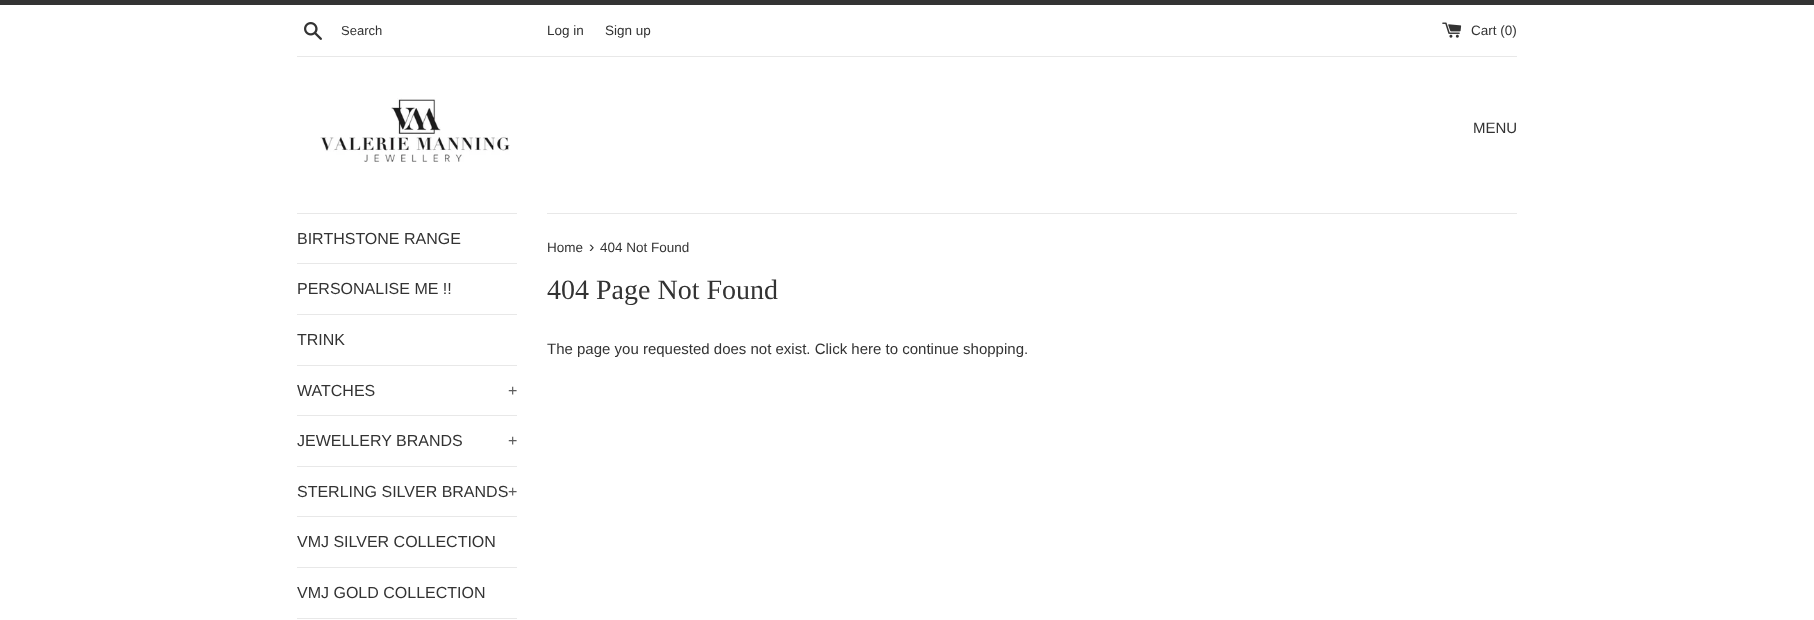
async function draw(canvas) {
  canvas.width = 1814;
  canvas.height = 620;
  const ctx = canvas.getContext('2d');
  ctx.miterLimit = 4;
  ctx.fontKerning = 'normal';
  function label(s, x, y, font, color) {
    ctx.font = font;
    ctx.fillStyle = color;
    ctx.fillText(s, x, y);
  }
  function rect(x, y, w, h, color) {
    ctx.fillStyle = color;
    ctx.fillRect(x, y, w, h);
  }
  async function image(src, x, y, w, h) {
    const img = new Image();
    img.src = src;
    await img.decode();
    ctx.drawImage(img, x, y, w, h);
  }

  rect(0, 0, 1814, 620, '#fff');
  rect(0, 0, 1814, 5, '#333');
  await image('assets/img1.png', 304, 22, 18, 18);
  label('Search', 341, 35, '13px Liberation Sans', '#333');
  label('Log in', 547, 35, '13.5px Liberation Sans', '#333');
  label('Sign up', 605, 35, '13.5px Liberation Sans', '#333');
  await image('assets/img2.png', 1442, 22, 20, 16);
  label('Cart (0)', 1471, 35, '13.5px Liberation Sans', '#333');
  rect(297, 56, 1220, 1, '#e8e8e8');
  await image('assets/img3.png', 320, 98, 190, 64);
  label('MENU', 1473, 133, '15px Liberation Sans', '#333');
  rect(297, 213, 220, 1, '#e8e8e8');
  rect(297, 263, 220, 1, '#e8e8e8');
  label('BIRTHSTONE RANGE', 297, 244, '16px Liberation Sans', '#333');
  rect(297, 314, 220, 1, '#e8e8e8');
  label('PERSONALISE ME !!', 297, 294, '16px Liberation Sans', '#333');
  rect(297, 365, 220, 1, '#e8e8e8');
  label('TRINK', 297, 345, '16px Liberation Sans', '#333');
  rect(297, 415, 220, 1, '#e8e8e8');
  label('WATCHES', 297, 396, '16px Liberation Sans', '#333');
  label('+', 508, 396, '16px Liberation Sans', '#5c5c5c');
  rect(297, 466, 220, 1, '#e8e8e8');
  label('JEWELLERY BRANDS', 297, 446, '16px Liberation Sans', '#333');
  label('+', 508, 446, '16px Liberation Sans', '#5c5c5c');
  rect(297, 516, 220, 1, '#e8e8e8');
  label('STERLING SILVER BRANDS', 297, 497, '16px Liberation Sans', '#333');
  label('+', 508, 497, '16px Liberation Sans', '#5c5c5c');
  rect(297, 567, 220, 1, '#e8e8e8');
  label('VMJ SILVER COLLECTION', 297, 547, '16px Liberation Sans', '#333');
  rect(297, 618, 220, 1, '#e8e8e8');
  label('VMJ GOLD COLLECTION', 297, 598, '16px Liberation Sans', '#333');
  rect(547, 213, 970, 1, '#e8e8e8');
  label('Home', 547, 252, '13.5px Liberation Sans', '#333');
  label('›', 589, 252, '16px Liberation Sans', '#333');
  label('404 Not Found', 600, 252, '13.5px Liberation Sans', '#333');
  label('404 Page Not Found', 547, 299, '28px Liberation Serif', '#333');
  label('The page you requested does not exist. Click here to continue shopping.', 547, 354, '15px Liberation Sans', '#333');
}

draw(document.querySelector('canvas'));
